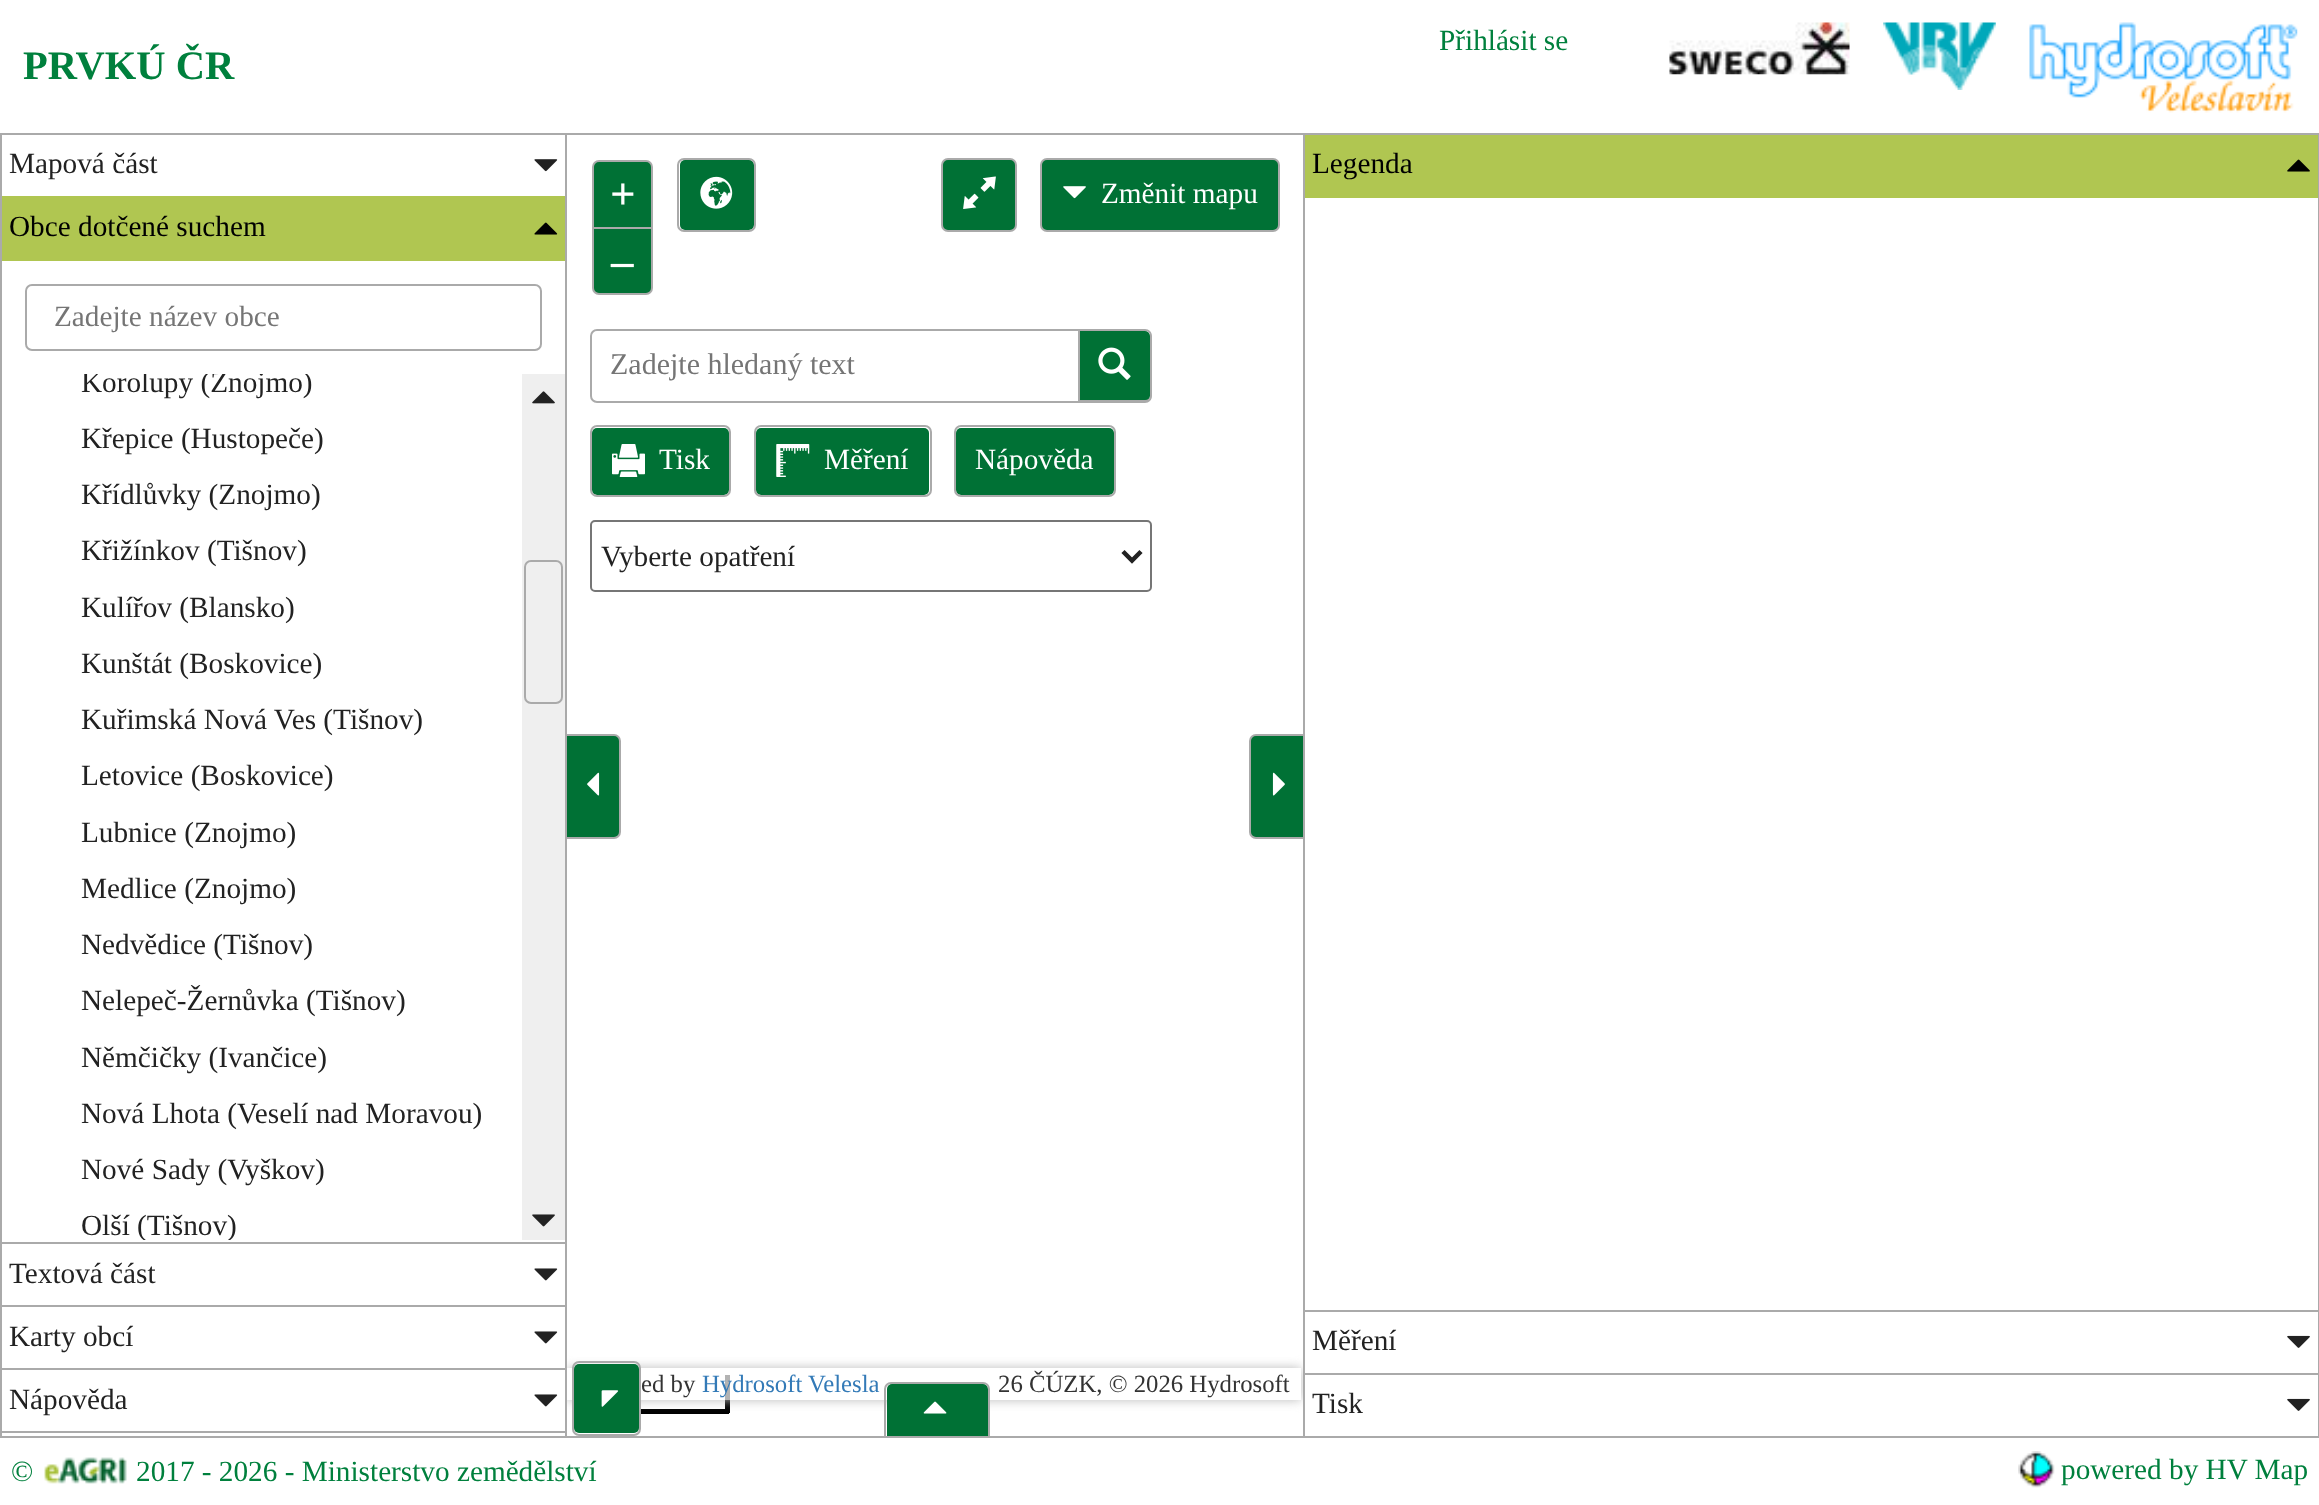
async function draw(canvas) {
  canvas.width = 2319;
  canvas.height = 1505;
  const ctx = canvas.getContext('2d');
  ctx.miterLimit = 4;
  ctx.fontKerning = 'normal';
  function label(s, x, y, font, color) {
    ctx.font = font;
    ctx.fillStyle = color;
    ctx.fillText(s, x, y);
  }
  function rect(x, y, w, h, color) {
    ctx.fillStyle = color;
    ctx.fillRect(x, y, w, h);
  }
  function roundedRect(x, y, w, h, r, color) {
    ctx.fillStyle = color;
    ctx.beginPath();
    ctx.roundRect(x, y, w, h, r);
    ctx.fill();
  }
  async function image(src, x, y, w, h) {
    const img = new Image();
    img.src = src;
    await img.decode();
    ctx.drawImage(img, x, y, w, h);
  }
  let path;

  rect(0, 0, 2319, 1505, '#fff');
  label('Přihlásit se', 1439, 50, '29.25px Liberation Serif', '#00803d');
  await image('assets/img1.png', 1669, 22, 181, 53);
  await image('assets/img2.png', 1883, 22, 113, 68);
  await image('assets/img3.png', 2029, 22, 269, 91);
  label('PRVKÚ ČR', 23, 79, 'bold 40.5px Liberation Serif', '#00803d');
  ctx.strokeStyle = '#aaa';
  ctx.lineWidth = 2;
  ctx.strokeRect(1, 134, 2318, 1303);
  label('Mapová část', 9, 173, '29.25px Liberation Serif', '#222');
  await image('assets/img4.png', 534, 159, 24, 13);
  rect(2, 196, 563, 65, '#b0c651');
  label('Obce dotčené suchem', 9, 236, '29.25px Liberation Serif', '#000');
  await image('assets/img5.png', 534, 222, 24, 13);
  rect(2, 1242, 563, 2, '#aaa');
  ctx.beginPath();
  ctx.roundRect(26, 285, 515, 65, 6);
  ctx.stroke();
  label('Zadejte název obce', 54, 326, '29.25px Liberation Serif', '#757575');
  ctx.save();
  ctx.beginPath();
  ctx.rect(14, 374, 483, 866);
  ctx.clip();
  label('Korolupy (Znojmo)', 81, 392, '29.25px Liberation Serif', '#222');
  ctx.restore();
  label('Křepice (Hustopeče)', 81, 448, '29.25px Liberation Serif', '#222');
  label('Křídlůvky (Znojmo)', 81, 504, '29.25px Liberation Serif', '#222');
  label('Křižínkov (Tišnov)', 81, 560, '29.25px Liberation Serif', '#222');
  label('Kulířov (Blansko)', 81, 617, '29.25px Liberation Serif', '#222');
  label('Kunštát (Boskovice)', 81, 673, '29.25px Liberation Serif', '#222');
  label('Kuřimská Nová Ves (Tišnov)', 81, 729, '29.25px Liberation Serif', '#222');
  label('Letovice (Boskovice)', 81, 785, '29.25px Liberation Serif', '#222');
  label('Lubnice (Znojmo)', 81, 842, '29.25px Liberation Serif', '#222');
  label('Medlice (Znojmo)', 81, 898, '29.25px Liberation Serif', '#222');
  label('Nedvědice (Tišnov)', 81, 954, '29.25px Liberation Serif', '#222');
  label('Nelepeč-Žernůvka (Tišnov)', 81, 1010, '29.25px Liberation Serif', '#222');
  label('Němčičky (Ivančice)', 81, 1067, '29.25px Liberation Serif', '#222');
  label('Nová Lhota (Veselí nad Moravou)', 81, 1123, '29.25px Liberation Serif', '#222');
  label('Nové Sady (Vyškov)', 81, 1179, '29.25px Liberation Serif', '#222');
  ctx.save();
  ctx.beginPath();
  ctx.rect(14, 374, 483, 866);
  ctx.clip();
  label('Olší (Tišnov)', 81, 1235, '29.25px Liberation Serif', '#222');
  ctx.restore();
  rect(522, 374, 43, 866, '#efefef');
  await image('assets/img6.png', 532, 391, 23, 13);
  ctx.beginPath();
  ctx.roundRect(525, 561, 37, 142, 6);
  ctx.stroke();
  await image('assets/img7.png', 532, 1214, 23, 13);
  rect(2, 1305, 563, 2, '#aaa');
  label('Textová část', 9, 1283, '29.25px Liberation Serif', '#222');
  await image('assets/img8.png', 534, 1268, 24, 13);
  rect(2, 1368, 563, 2, '#aaa');
  label('Karty obcí', 9, 1346, '29.25px Liberation Serif', '#222');
  await image('assets/img8.png', 534, 1331, 24, 13);
  rect(2, 1431, 563, 2, '#aaa');
  label('Nápověda', 9, 1409, '29.25px Liberation Serif', '#222');
  await image('assets/img8.png', 534, 1394, 24, 13);
  rect(1305, 1373, 1013, 2, '#aaa');
  rect(725, 1375, 5, 38, '#000');
  rect(641, 1409, 88, 5, '#000');
  ctx.save();
  ctx.beginPath();
  ctx.rect(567, 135, 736, 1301);
  ctx.clip();
  path = new Path2D('M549 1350H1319V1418H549ZM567 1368H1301V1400H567Z');
  ctx.clip(path, 'evenodd');
  ctx.fillStyle = '#bbb';
  ctx.filter = 'blur(5.5px)';
  ctx.beginPath();
  ctx.rect(567, 1368, 734, 32);
  ctx.fill();
  ctx.filter = 'none';
  ctx.restore();
  rect(565, 135, 2, 1301, '#aaa');
  ctx.fillStyle = '#007135';
  ctx.beginPath();
  ctx.roundRect(566, 735, 54, 103, [0, 6, 6, 0]);
  ctx.fill();
  ctx.stroke();
  await image('assets/img9.png', 587, 772, 13, 24);
  rect(1303, 135, 2, 1301, '#aaa');
  ctx.fillStyle = '#007135';
  ctx.beginPath();
  ctx.roundRect(1250, 735, 54, 103, [6, 0, 0, 6]);
  ctx.fill();
  ctx.stroke();
  await image('assets/img10.png', 1272, 772, 13, 24);
  rect(1305, 135, 1013, 63, '#b0c651');
  label('Legenda', 1312, 173, '29.25px Liberation Serif', '#000');
  await image('assets/img11.png', 2287, 159, 23, 13);
  rect(1305, 1310, 1013, 2, '#aaa');
  label('Měření', 1312, 1350, '29.25px Liberation Serif', '#222');
  await image('assets/img12.png', 2287, 1335, 23, 13);
  label('Tisk', 1312, 1413, '29.25px Liberation Serif', '#222');
  await image('assets/img12.png', 2287, 1398, 23, 13);
  ctx.fillStyle = '#007135';
  ctx.beginPath();
  ctx.roundRect(593, 161, 59, 68, [6, 6, 0, 0]);
  ctx.fill();
  ctx.stroke();
  label('+', 610, 209, 'bold 45px Liberation Serif', '#fff');
  ctx.fillStyle = '#007135';
  ctx.beginPath();
  ctx.roundRect(593, 228, 59, 66, [0, 0, 6, 6]);
  ctx.fill();
  ctx.stroke();
  label('–', 611, 276, 'bold 45px Liberation Serif', '#fff');
  roundedRect(680, 160, 74, 70, 5, '#007135');
  ctx.beginPath();
  ctx.roundRect(678, 159, 77, 72, 6);
  ctx.stroke();
  await image('assets/img13.png', 700, 176, 33, 33);
  ctx.beginPath();
  ctx.roundRect(591, 330, 488, 72, [6, 0, 0, 6]);
  ctx.stroke();
  label('Zadejte hledaný text', 610, 374, '30px Liberation Serif', '#757575');
  ctx.fillStyle = '#007135';
  ctx.beginPath();
  ctx.roundRect(1080, 331, 70, 70, [0, 5, 5, 0]);
  ctx.fill();
  ctx.fillStyle = '#aaa';
  path = new Path2D('M1080 331H1145C1148 331 1150 333 1150 335V396C1150 398 1148 400 1145 400H1080V403H1145C1149 403 1152 400 1152 396V336C1152 332 1149 329 1145 329H1080Z');
  ctx.fill(path);
  await image('assets/img14.png', 1098, 347, 33, 33);
  roundedRect(592, 428, 137, 67, 5, '#007135');
  ctx.beginPath();
  ctx.roundRect(591, 426, 139, 70, 6);
  ctx.stroke();
  await image('assets/img15.png', 612, 444, 33, 33);
  label('Tisk', 659, 469, '29.25px Liberation Serif', '#fff');
  roundedRect(756, 428, 173, 67, 5, '#007135');
  ctx.beginPath();
  ctx.roundRect(755, 426, 176, 70, 6);
  ctx.stroke();
  await image('assets/img16.png', 776, 444, 34, 33);
  label('Měření', 824, 469, '29.25px Liberation Serif', '#fff');
  roundedRect(956, 428, 158, 67, 5, '#007135');
  ctx.beginPath();
  ctx.roundRect(955, 426, 160, 70, 6);
  ctx.stroke();
  label('Nápověda', 975, 469, '29.25px Liberation Serif', '#fff');
  ctx.beginPath();
  ctx.roundRect(591, 521, 560, 70, 4);
  ctx.strokeStyle = '#767676';
  ctx.stroke();
  path = new Path2D('M1123 551.5L1132 560.5L1141 551.5');
  ctx.strokeStyle = '#222';
  ctx.lineWidth = 4.5;
  ctx.stroke(path);
  label('Vyberte opatření', 601, 566, '29.25px Liberation Serif', '#222');
  ctx.fillStyle = '#007135';
  ctx.beginPath();
  ctx.roundRect(942, 159, 74, 72, 6);
  ctx.fill();
  ctx.strokeStyle = '#aaa';
  ctx.lineWidth = 2;
  ctx.stroke();
  await image('assets/img17.png', 963, 176, 33, 33);
  ctx.beginPath();
  ctx.roundRect(1041, 159, 238, 72, 6);
  ctx.fill();
  ctx.stroke();
  await image('assets/img18.png', 1063, 186, 23, 13);
  label('Změnit mapu', 1101, 203, '29.25px Liberation Serif', '#fff');
  rect(567, 1368, 734, 32, '#ffffffb3');
  roundedRect(574, 1364, 65, 69, 5, '#007135');
  ctx.beginPath();
  ctx.roundRect(573, 1362, 67, 73, 6);
  ctx.stroke();
  await image('assets/img19.png', 601, 1390, 18, 17);
  label('ed by', 641, 1392, '24.75px Liberation Serif', '#333');
  label('Hydrosoft Velesla', 702, 1392, '24.75px Liberation Serif', '#337ab7');
  label('26 ČÚZK, © 2026 Hydrosoft', 998, 1392, '24.75px Liberation Serif', '#333');
  ctx.fillStyle = '#007135';
  ctx.beginPath();
  ctx.roundRect(887, 1384, 101, 52, [5, 5, 0, 0]);
  ctx.fill();
  ctx.save();
  ctx.beginPath();
  ctx.rect(567, 135, 736, 1301);
  ctx.clip();
  ctx.beginPath();
  ctx.roundRect(885, 1383, 104, 54, [6, 6, 0, 0]);
  ctx.stroke();
  ctx.restore();
  await image('assets/img20.png', 923, 1401, 24, 13);
  label('©', 11, 1481, '29.25px Liberation Serif', '#00803d');
  await image('assets/img21.png', 44, 1457, 83, 27);
  label('2017 - 2026 - Ministerstvo zemědělství', 136, 1481, '29.25px Liberation Serif', '#00803d');
  await image('assets/img22.png', 2018, 1451, 37, 37);
  label('powered by HV Map', 2061, 1479, '29.25px Liberation Serif', '#00803d');
}

draw(document.querySelector('canvas'));
